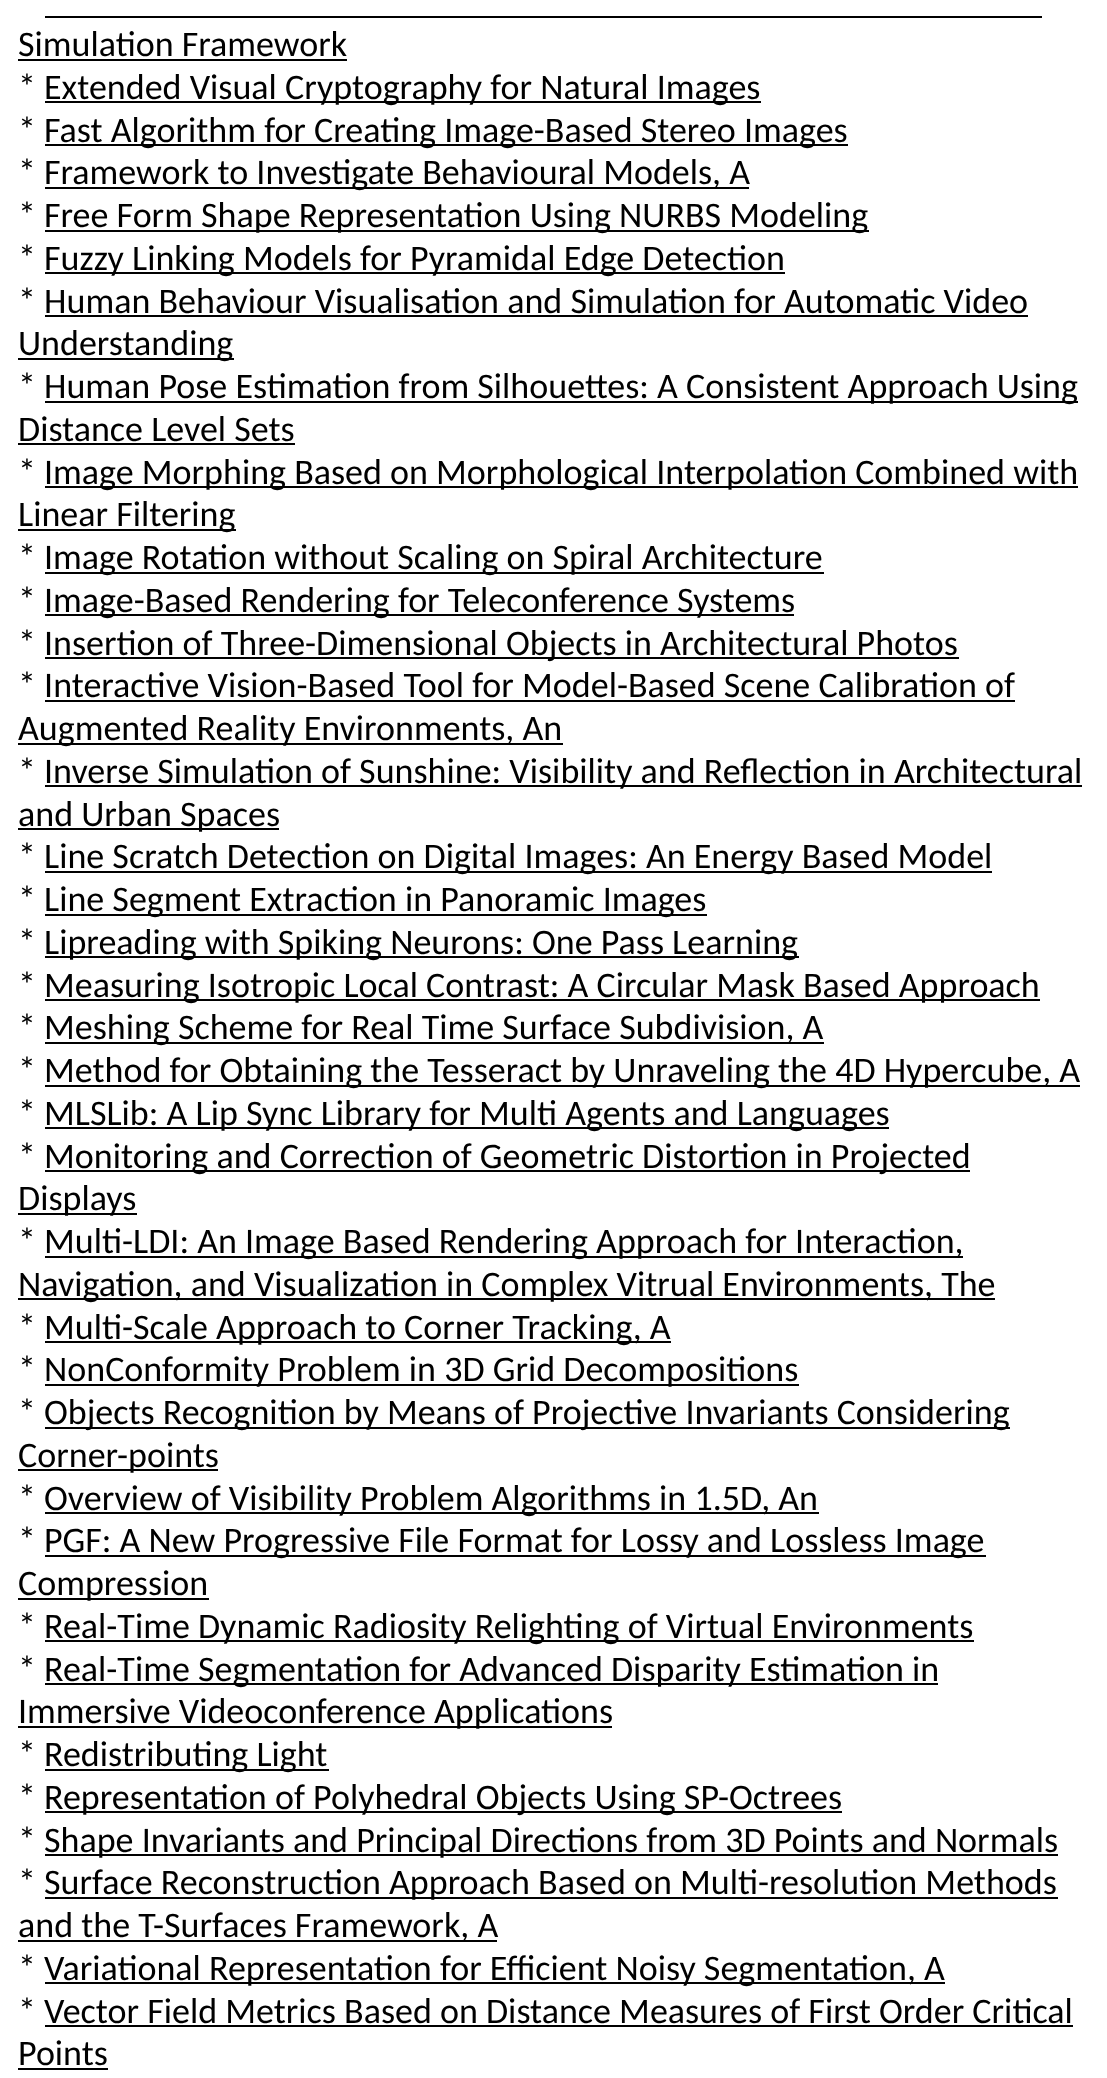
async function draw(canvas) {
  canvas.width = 1107;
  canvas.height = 2078;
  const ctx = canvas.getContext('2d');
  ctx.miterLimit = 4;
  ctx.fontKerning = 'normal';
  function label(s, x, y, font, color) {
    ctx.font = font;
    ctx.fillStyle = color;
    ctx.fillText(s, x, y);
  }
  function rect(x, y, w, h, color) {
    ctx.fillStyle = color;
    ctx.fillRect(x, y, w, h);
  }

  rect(0, 0, 1107, 2078, '#fff');
  label('Simulation Framework', 18, 56, '36px Carlito', '#000');
  rect(45, 16, 997, 2, '#000');
  rect(18, 59, 329, 2, '#000');
  label('*', 18, 99, '36px Carlito', '#000');
  rect(45, 101, 716, 2, '#000');
  label('Extended Visual Cryptography for Natural Images', 44, 99, '36px Carlito', '#000');
  label('*', 18, 142, '36px Carlito', '#000');
  rect(45, 144, 803, 2, '#000');
  label('Fast Algorithm for Creating Image-Based Stereo Images', 44, 142, '36px Carlito', '#000');
  label('*', 18, 184, '36px Carlito', '#000');
  rect(45, 187, 704, 2, '#000');
  label('Framework to Investigate Behavioural Models, A', 44, 184, '36px Carlito', '#000');
  label('*', 18, 227, '36px Carlito', '#000');
  rect(45, 230, 824, 2, '#000');
  label('Free Form Shape Representation Using NURBS Modeling', 44, 227, '36px Carlito', '#000');
  label('*', 18, 270, '36px Carlito', '#000');
  rect(45, 272, 740, 2, '#000');
  label('Fuzzy Linking Models for Pyramidal Edge Detection', 44, 270, '36px Carlito', '#000');
  label('* Human Behaviour Visualisation and Simulation for Automatic Video', 18, 313, '36px Carlito', '#000');
  rect(18, 358, 216, 2, '#000');
  label('Understanding', 18, 355, '36px Carlito', '#000');
  rect(45, 315, 983, 2, '#000');
  label('*', 18, 398, '36px Carlito', '#000');
  rect(45, 401, 1033, 2, '#000');
  label('Human Pose Estimation from Silhouettes: A Consistent Approach Using', 44, 398, '36px Carlito', '#000');
  label('Distance Level Sets', 18, 441, '36px Carlito', '#000');
  rect(18, 443, 277, 2, '#000');
  label('*', 18, 484, '36px Carlito', '#000');
  rect(45, 486, 1033, 2, '#000');
  label('Image Morphing Based on Morphological Interpolation Combined with', 44, 484, '36px Carlito', '#000');
  rect(18, 529, 218, 2, '#000');
  label('Linear Filtering', 18, 526, '36px Carlito', '#000');
  label('*', 18, 569, '36px Carlito', '#000');
  rect(45, 572, 779, 2, '#000');
  label('Image Rotation without Scaling on Spiral Architecture', 44, 569, '36px Carlito', '#000');
  label('*', 18, 612, '36px Carlito', '#000');
  rect(45, 614, 749, 2, '#000');
  label('Image-Based Rendering for Teleconference Systems', 44, 612, '36px Carlito', '#000');
  label('*', 18, 655, '36px Carlito', '#000');
  rect(45, 657, 914, 2, '#000');
  label('Insertion of Three-Dimensional Objects in Architectural Photos', 44, 655, '36px Carlito', '#000');
  label('* Interactive Vision-Based Tool for Model-Based Scene Calibration of', 18, 697, '36px Carlito', '#000');
  rect(18, 743, 545, 2, '#000');
  label('Augmented Reality Environments, An', 18, 740, '36px Carlito', '#000');
  rect(45, 700, 970, 2, '#000');
  label('*', 18, 783, '36px Carlito', '#000');
  rect(45, 785, 1037, 2, '#000');
  label('Inverse Simulation of Sunshine: Visibility and Reflection in Architectural', 44, 783, '36px Carlito', '#000');
  rect(18, 828, 261, 2, '#000');
  label('and Urban Spaces', 18, 826, '36px Carlito', '#000');
  label('*', 18, 868, '36px Carlito', '#000');
  rect(45, 871, 947, 2, '#000');
  label('Line Scratch Detection on Digital Images: An Energy Based Model', 44, 868, '36px Carlito', '#000');
  label('*', 18, 911, '36px Carlito', '#000');
  rect(45, 914, 662, 2, '#000');
  label('Line Segment Extraction in Panoramic Images', 44, 911, '36px Carlito', '#000');
  label('*', 18, 954, '36px Carlito', '#000');
  rect(45, 956, 754, 2, '#000');
  label('Lipreading with Spiking Neurons: One Pass Learning', 44, 954, '36px Carlito', '#000');
  label('*', 18, 997, '36px Carlito', '#000');
  rect(45, 999, 995, 2, '#000');
  label('Measuring Isotropic Local Contrast: A Circular Mask Based Approach', 44, 997, '36px Carlito', '#000');
  label('*', 18, 1039, '36px Carlito', '#000');
  rect(45, 1042, 779, 2, '#000');
  label('Meshing Scheme for Real Time Surface Subdivision, A', 44, 1039, '36px Carlito', '#000');
  label('*', 18, 1082, '36px Carlito', '#000');
  rect(45, 1085, 1035, 2, '#000');
  label('Method for Obtaining the Tesseract by Unraveling the 4D Hypercube, A', 44, 1082, '36px Carlito', '#000');
  label('*', 18, 1125, '36px Carlito', '#000');
  rect(45, 1127, 844, 2, '#000');
  label('MLSLib: A Lip Sync Library for Multi Agents and Languages', 44, 1125, '36px Carlito', '#000');
  label('*', 18, 1168, '36px Carlito', '#000');
  rect(45, 1170, 925, 2, '#000');
  label('Monitoring and Correction of Geometric Distortion in Projected', 44, 1168, '36px Carlito', '#000');
  rect(18, 1213, 119, 2, '#000');
  label('Displays', 18, 1210, '36px Carlito', '#000');
  label('*', 18, 1253, '36px Carlito', '#000');
  rect(45, 1256, 918, 2, '#000');
  label('Multi-LDI: An Image Based Rendering Approach for Interaction,', 44, 1253, '36px Carlito', '#000');
  rect(18, 1298, 977, 2, '#000');
  label('Navigation, and Visualization in Complex Vitrual Environments, The', 18, 1296, '36px Carlito', '#000');
  label('*', 18, 1339, '36px Carlito', '#000');
  rect(45, 1341, 626, 2, '#000');
  label('Multi-Scale Approach to Corner Tracking, A', 44, 1339, '36px Carlito', '#000');
  label('*', 18, 1381, '36px Carlito', '#000');
  rect(45, 1384, 754, 2, '#000');
  label('NonConformity Problem in 3D Grid Decompositions', 44, 1381, '36px Carlito', '#000');
  label('*', 18, 1424, '36px Carlito', '#000');
  rect(45, 1427, 965, 2, '#000');
  label('Objects Recognition by Means of Projective Invariants Considering', 44, 1424, '36px Carlito', '#000');
  rect(18, 1469, 200, 2, '#000');
  label('Corner-points', 18, 1467, '36px Carlito', '#000');
  label('*', 18, 1510, '36px Carlito', '#000');
  rect(45, 1512, 774, 2, '#000');
  label('Overview of Visibility Problem Algorithms in 1.5D, An', 44, 1510, '36px Carlito', '#000');
  label('*', 18, 1552, '36px Carlito', '#000');
  rect(45, 1555, 941, 2, '#000');
  label('PGF: A New Progressive File Format for Lossy and Lossless Image', 44, 1552, '36px Carlito', '#000');
  rect(18, 1598, 191, 2, '#000');
  label('Compression', 18, 1595, '36px Carlito', '#000');
  label('*', 18, 1638, '36px Carlito', '#000');
  rect(45, 1640, 929, 2, '#000');
  label('Real-Time Dynamic Radiosity Relighting of Virtual Environments', 44, 1638, '36px Carlito', '#000');
  label('*', 18, 1681, '36px Carlito', '#000');
  rect(45, 1683, 893, 2, '#000');
  label('Real-Time Segmentation for Advanced Disparity Estimation in', 44, 1681, '36px Carlito', '#000');
  rect(18, 1726, 594, 2, '#000');
  label('Immersive Videoconference Applications', 18, 1723, '36px Carlito', '#000');
  label('*', 18, 1766, '36px Carlito', '#000');
  rect(45, 1769, 284, 2, '#000');
  label('Redistributing Light', 44, 1766, '36px Carlito', '#000');
  label('*', 18, 1809, '36px Carlito', '#000');
  rect(45, 1811, 797, 2, '#000');
  label('Representation of Polyhedral Objects Using SP-Octrees', 44, 1809, '36px Carlito', '#000');
  label('*', 18, 1852, '36px Carlito', '#000');
  rect(45, 1854, 1013, 2, '#000');
  label('Shape Invariants and Principal Directions from 3D Points and Normals', 44, 1852, '36px Carlito', '#000');
  label('*', 18, 1894, '36px Carlito', '#000');
  rect(45, 1897, 1013, 2, '#000');
  label('Surface Reconstruction Approach Based on Multi-resolution Methods', 44, 1894, '36px Carlito', '#000');
  rect(18, 1940, 479, 2, '#000');
  label('and the T-Surfaces Framework, A', 18, 1937, '36px Carlito', '#000');
  label('*', 18, 1980, '36px Carlito', '#000');
  rect(45, 1982, 900, 2, '#000');
  label('Variational Representation for Efficient Noisy Segmentation, A', 44, 1980, '36px Carlito', '#000');
  label('* Vector Field Metrics Based on Distance Measures of First Order Critical', 18, 2023, '36px Carlito', '#000');
  label('Points', 18, 2065, '36px Carlito', '#000');
  rect(45, 2025, 1028, 2, '#000');
  rect(18, 2068, 90, 2, '#000');
}

draw(document.querySelector('canvas'));
